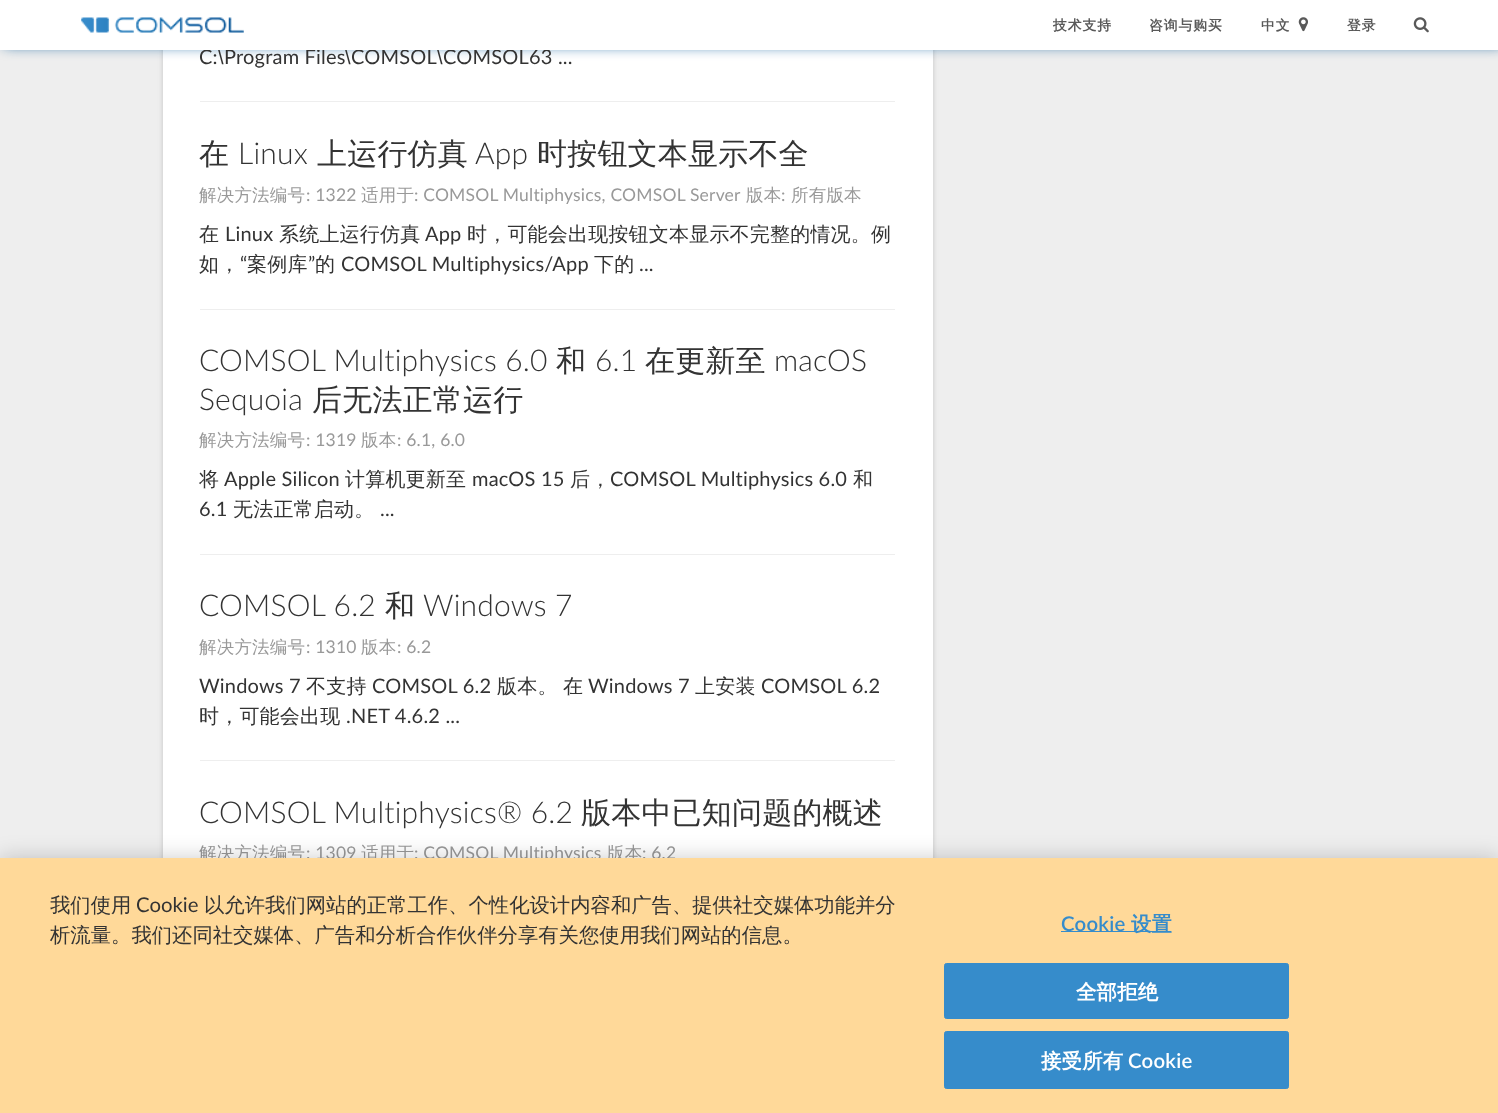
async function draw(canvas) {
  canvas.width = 1498;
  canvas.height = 1113;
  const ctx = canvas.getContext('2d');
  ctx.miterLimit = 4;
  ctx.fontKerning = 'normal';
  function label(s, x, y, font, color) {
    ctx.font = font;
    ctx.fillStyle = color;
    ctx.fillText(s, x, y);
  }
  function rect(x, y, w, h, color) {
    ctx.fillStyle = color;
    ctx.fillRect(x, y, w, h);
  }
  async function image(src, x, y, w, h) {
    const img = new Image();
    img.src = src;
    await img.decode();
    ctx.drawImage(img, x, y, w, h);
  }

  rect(0, 0, 1498, 1113, '#eee');
  ctx.fillStyle = '#6464644d';
  ctx.filter = 'blur(2.5px)';
  ctx.beginPath();
  ctx.roundRect(163, -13, 770, 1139, 5);
  ctx.fill();
  ctx.filter = 'none';
  rect(163, 50, 770, 808, '#fff');
  ctx.fillStyle = '#005596';
  ctx.filter = 'blur(7px)';
  ctx.beginPath();
  ctx.rect(4, -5, 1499, 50);
  ctx.fill();
  ctx.filter = 'none';
  ctx.letterSpacing = '0.2px';
  label('C:', 199, 64, '20px Lato', '#333');
  label('\\', 218, 64, '20px Liberation Sans', '#333');
  label('Program Files', 224, 64, '20px Lato', '#333');
  label('\\', 345, 64, '20px Liberation Sans', '#333');
  label('COMSOL', 351, 64, '20px Lato', '#333');
  label('\\', 437, 64, '20px Liberation Sans', '#333');
  label('COMSOL63 ...', 443, 64, '20px Lato', '#333');
  rect(0, 0, 1498, 50, '#fff');
  await image('assets/img1.png', 81, 17, 163, 16);
  ctx.letterSpacing = '1px';
  label('技术支持', 1053, 30, 'bold 13.75px WenQuanYi Zen Hei', '#595959');
  label('咨询与购买', 1149, 30, 'bold 13.75px WenQuanYi Zen Hei', '#595959');
  label('中文', 1261, 30, 'bold 13.75px WenQuanYi Zen Hei', '#595959');
  await image('assets/img2.png', 1298, 17, 10, 15);
  label('登录', 1347, 30, 'bold 13.75px WenQuanYi Zen Hei', '#595959');
  await image('assets/img3.png', 1413, 17, 16, 16);
  rect(200, 101, 695, 1, '#eee');
  ctx.letterSpacing = '0.2px';
  label('在', 199, 164, '500 30px WenQuanYi Zen Hei', '#333');
  label('Linux', 238, 164, '300 30px Lato', '#333');
  label('上运行仿真', 317, 164, '500 30px WenQuanYi Zen Hei', '#333');
  label('App', 475, 164, '300 30px Lato', '#333');
  label('时按钮文本显示不全', 537, 164, '500 30px WenQuanYi Zen Hei', '#333');
  label('解决方法编号', 199, 201, '500 17.5px WenQuanYi Zen Hei', '#999');
  label(': 1322', 306, 201, '17.5px Lato', '#999');
  label('适用于', 361, 201, '500 17.5px WenQuanYi Zen Hei', '#999');
  label(': COMSOL Multiphysics, COMSOL Server', 414, 201, '17.5px Lato', '#999');
  label('版本', 746, 201, '500 17.5px WenQuanYi Zen Hei', '#999');
  label(':', 781, 201, '17.5px Lato', '#999');
  label('所有版本', 791, 201, '500 17.5px WenQuanYi Zen Hei', '#999');
  label('在', 199, 241, '500 20px WenQuanYi Zen Hei', '#333');
  label('Linux', 225, 241, '20px Lato', '#333');
  label('系统上运行仿真', 279, 241, '500 20px WenQuanYi Zen Hei', '#333');
  label('App', 425, 241, '20px Lato', '#333');
  label('时，可能会出现按钮文本显示不完整的情况。例', 467, 241, '500 20px WenQuanYi Zen Hei', '#333');
  label('如，', 199, 271, '500 20px WenQuanYi Zen Hei', '#333');
  label('“', 240, 271, '20px Lato', '#333');
  label('案例库', 247, 271, '500 20px WenQuanYi Zen Hei', '#333');
  label('”', 308, 271, '20px Lato', '#333');
  label('的', 315, 271, '500 20px WenQuanYi Zen Hei', '#333');
  label('COMSOL Multiphysics/App', 341, 271, '20px Lato', '#333');
  label('下的', 594, 271, '500 20px WenQuanYi Zen Hei', '#333');
  label('...', 639, 271, '20px Lato', '#333');
  rect(200, 309, 695, 1, '#eee');
  label('COMSOL Multiphysics 6.0', 199, 371, '300 30px Lato', '#333');
  label('和', 556, 371, '500 30px WenQuanYi Zen Hei', '#333');
  label('6.1', 595, 371, '300 30px Lato', '#333');
  label('在更新至', 645, 371, '500 30px WenQuanYi Zen Hei', '#333');
  label('macOS', 774, 371, '300 30px Lato', '#333');
  label('Sequoia', 199, 410, '300 30px Lato', '#333');
  label('后无法正常运行', 312, 410, '500 30px WenQuanYi Zen Hei', '#333');
  label('解决方法编号', 199, 446, '500 17.5px WenQuanYi Zen Hei', '#999');
  label(': 1319', 306, 446, '17.5px Lato', '#999');
  label('版本', 361, 446, '500 17.5px WenQuanYi Zen Hei', '#999');
  label(': 6.1, 6.0', 397, 446, '17.5px Lato', '#999');
  label('将', 199, 486, '500 20px WenQuanYi Zen Hei', '#333');
  label('Apple Silicon', 224, 486, '20px Lato', '#333');
  label('计算机更新至', 345, 486, '500 20px WenQuanYi Zen Hei', '#333');
  label('macOS 15', 472, 486, '20px Lato', '#333');
  label('后，', 570, 486, '500 20px WenQuanYi Zen Hei', '#333');
  label('COMSOL Multiphysics 6.0', 610, 486, '20px Lato', '#333');
  label('和', 853, 486, '500 20px WenQuanYi Zen Hei', '#333');
  label('6.1', 199, 516, '20px Lato', '#333');
  label('无法正常启动。', 233, 516, '500 20px WenQuanYi Zen Hei', '#333');
  label('...', 380, 516, '20px Lato', '#333');
  rect(200, 554, 695, 1, '#eee');
  label('COMSOL 6.2', 199, 616, '300 30px Lato', '#333');
  label('和', 385, 616, '500 30px WenQuanYi Zen Hei', '#333');
  label('Windows 7', 423, 616, '300 30px Lato', '#333');
  label('解决方法编号', 199, 653, '500 17.5px WenQuanYi Zen Hei', '#999');
  label(': 1310', 306, 653, '17.5px Lato', '#999');
  label('版本', 361, 653, '500 17.5px WenQuanYi Zen Hei', '#999');
  label(': 6.2', 397, 653, '17.5px Lato', '#999');
  label('Windows 7', 199, 693, '20px Lato', '#333');
  label('不支持', 306, 693, '500 20px WenQuanYi Zen Hei', '#333');
  label('COMSOL 6.2', 372, 693, '20px Lato', '#333');
  label('版本。', 497, 693, '500 20px WenQuanYi Zen Hei', '#333');
  label('在', 563, 693, '500 20px WenQuanYi Zen Hei', '#333');
  label('Windows 7', 588, 693, '20px Lato', '#333');
  label('上安装', 695, 693, '500 20px WenQuanYi Zen Hei', '#333');
  label('COMSOL 6.2', 761, 693, '20px Lato', '#333');
  label('时，可能会出现', 199, 723, '500 20px WenQuanYi Zen Hei', '#333');
  label('.NET 4.6.2 ...', 346, 723, '20px Lato', '#333');
  rect(200, 760, 695, 1, '#eee');
  label('COMSOL Multiphysics® 6.2', 199, 823, '300 30px Lato', '#333');
  label('版本中已知问题的概述', 581, 823, '500 30px WenQuanYi Zen Hei', '#333');
  label('解决方法编号', 199, 859, '500 17.5px WenQuanYi Zen Hei', '#999');
  label(': 1309', 306, 859, '17.5px Lato', '#999');
  label('适用于', 361, 859, '500 17.5px WenQuanYi Zen Hei', '#999');
  label(': COMSOL Multiphysics', 414, 859, '17.5px Lato', '#999');
  label('版本', 607, 859, '500 17.5px WenQuanYi Zen Hei', '#999');
  label(': 6.2', 642, 859, '17.5px Lato', '#999');
  ctx.fillStyle = '#00000033';
  ctx.filter = 'blur(11px)';
  ctx.beginPath();
  ctx.rect(0, 858, 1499, 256);
  ctx.fill();
  ctx.filter = 'none';
  rect(0, 858, 1498, 255, '#ffd999');
  ctx.letterSpacing = '0px';
  label('我们使用', 50, 912, '500 20.35px WenQuanYi Zen Hei', '#333');
  label('Cookie', 136, 912, '20.35px Lato', '#333');
  label('以允许我们网站的正常工作、个性化设计内容和广告、提供社交媒体功能并分', 204, 912, '500 20.35px WenQuanYi Zen Hei', '#333');
  label('析流量。我们还同社交媒体、广告和分析合作伙伴分享有关您使用我们网站的信息。', 50, 942, '500 20.35px WenQuanYi Zen Hei', '#333');
  rect(1061, 931, 110, 1, '#368ccb');
  ctx.letterSpacing = '0.25px';
  label('Cookie', 1061, 931, '600 20.35px Lato', '#368ccb');
  label('设置', 1131, 931, 'bold 20.35px WenQuanYi Zen Hei', '#368ccb');
  ctx.beginPath();
  ctx.roundRect(944.5, 963.5, 344, 55, 2);
  ctx.fill();
  ctx.strokeStyle = '#368ccb';
  ctx.stroke();
  label('全部拒绝', 1076, 999, 'bold 20.35px WenQuanYi Zen Hei', '#fff');
  ctx.fillStyle = '#368ccb';
  ctx.beginPath();
  ctx.roundRect(944.5, 1031.5, 344, 57, 2);
  ctx.fill();
  ctx.stroke();
  label('接受所有', 1041, 1068, 'bold 20.35px WenQuanYi Zen Hei', '#fff');
  label('Cookie', 1128, 1068, '600 20.35px Lato', '#fff');
}

draw(document.querySelector('canvas'));
